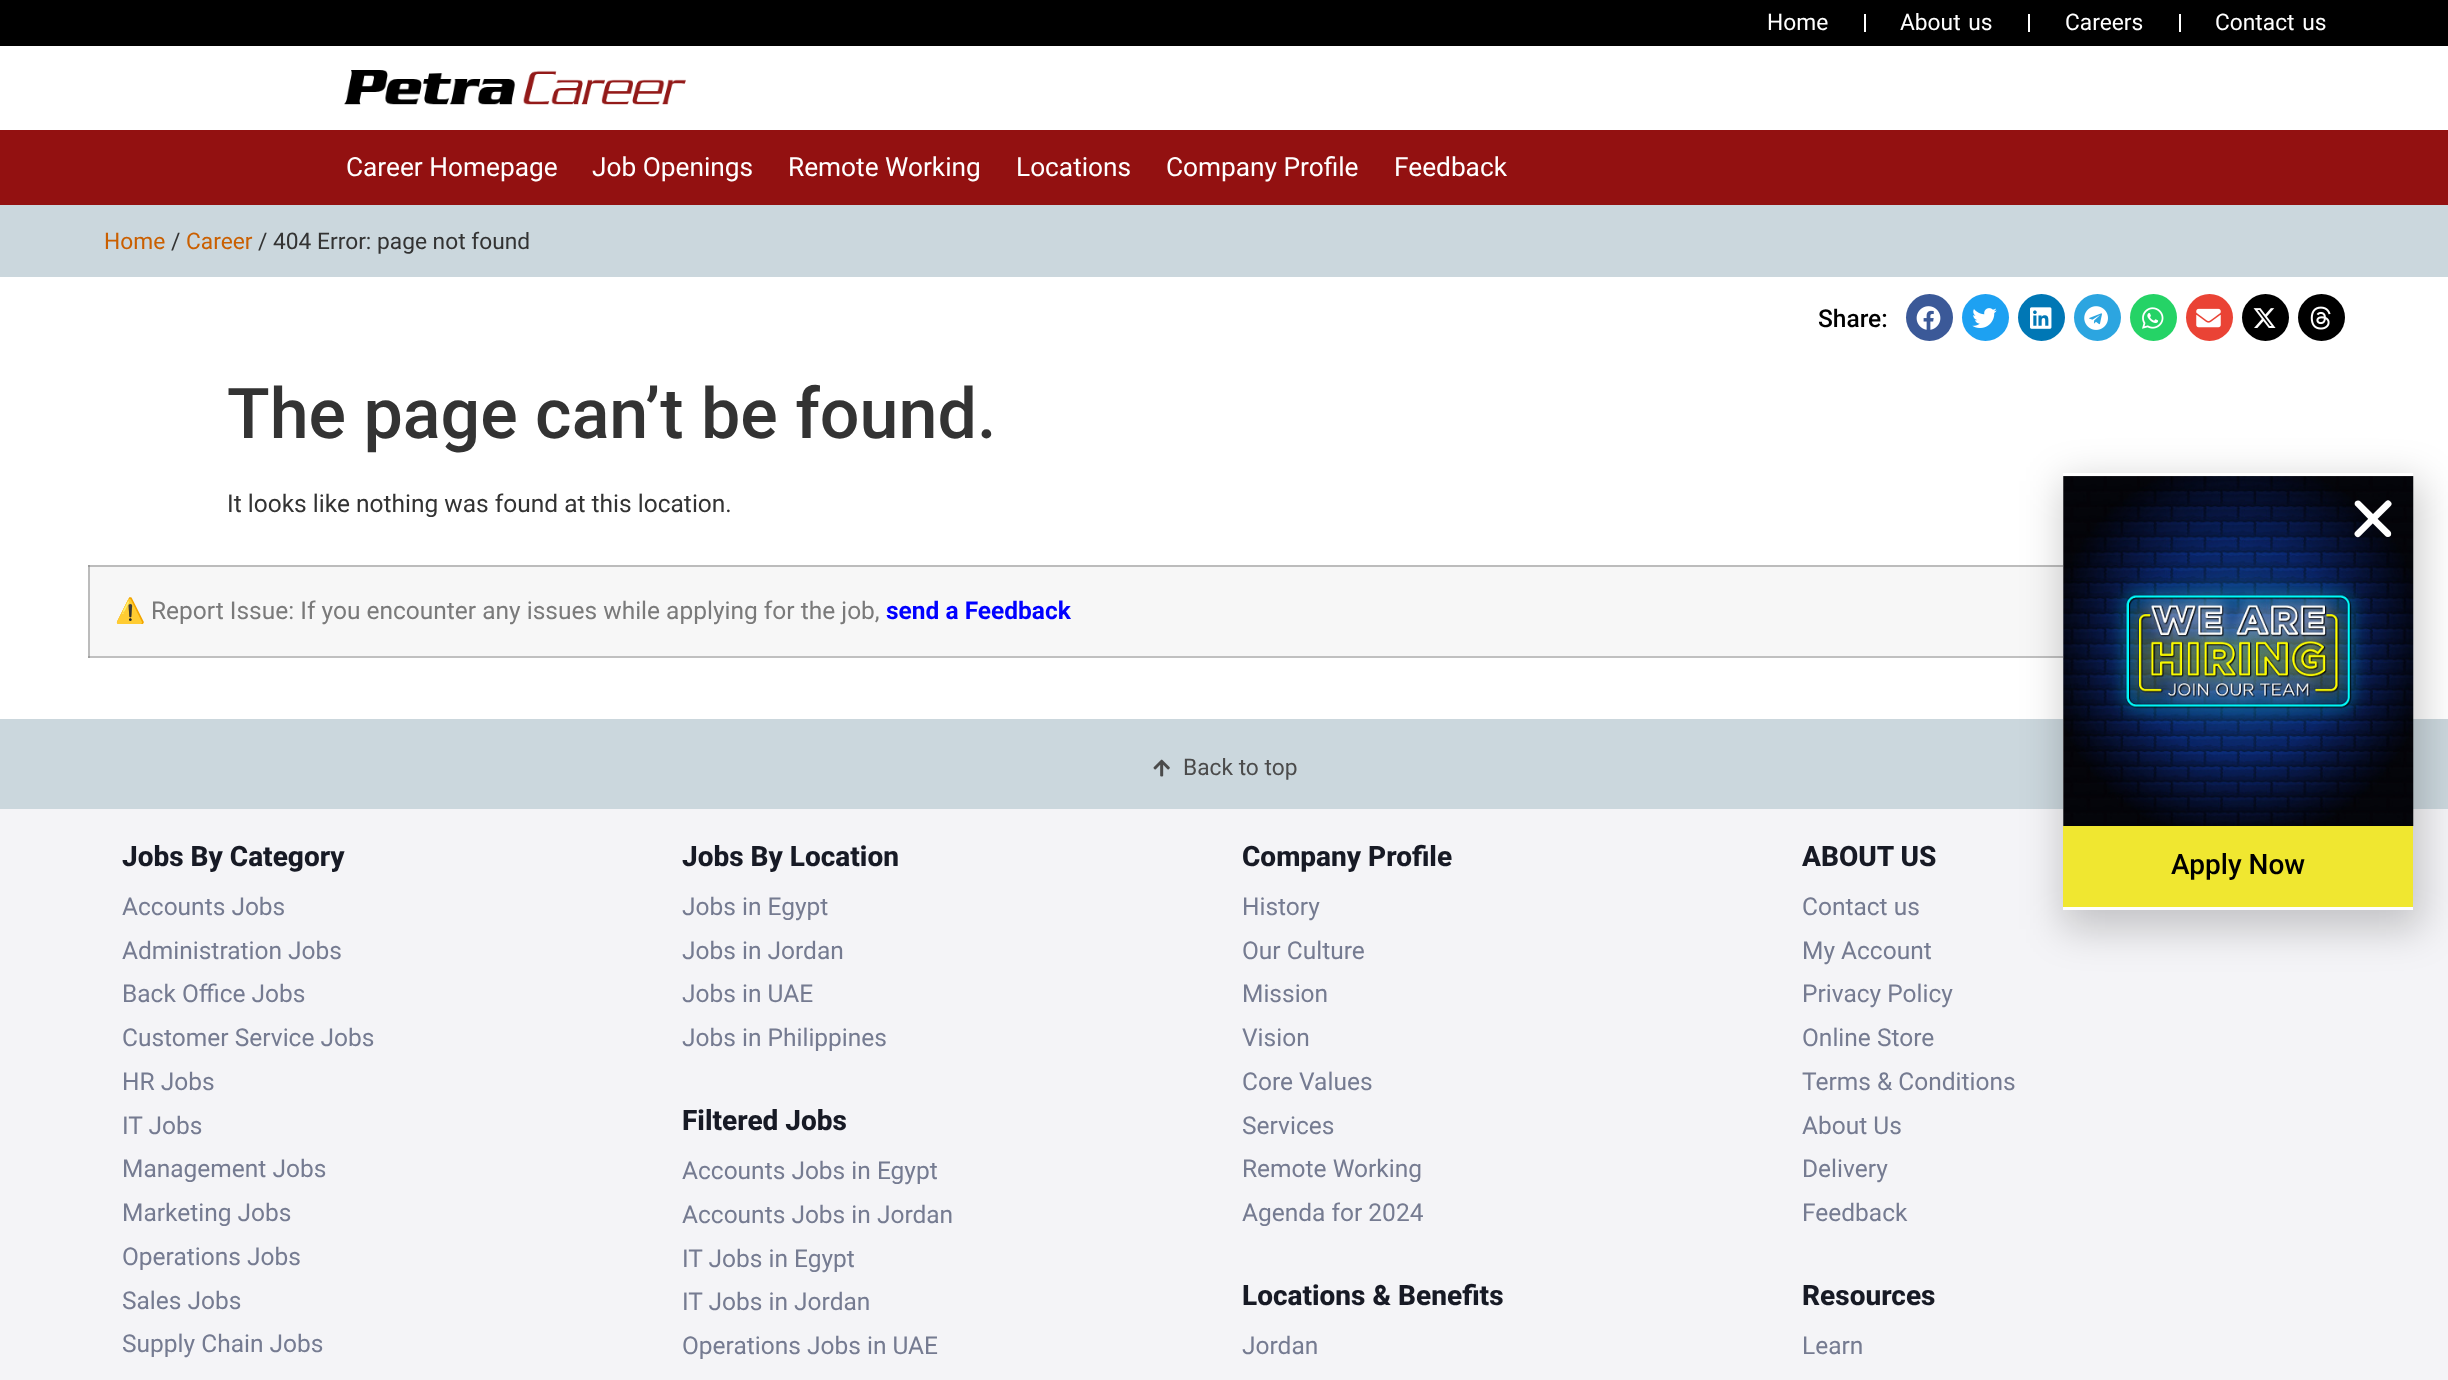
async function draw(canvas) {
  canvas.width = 2448;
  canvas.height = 1380;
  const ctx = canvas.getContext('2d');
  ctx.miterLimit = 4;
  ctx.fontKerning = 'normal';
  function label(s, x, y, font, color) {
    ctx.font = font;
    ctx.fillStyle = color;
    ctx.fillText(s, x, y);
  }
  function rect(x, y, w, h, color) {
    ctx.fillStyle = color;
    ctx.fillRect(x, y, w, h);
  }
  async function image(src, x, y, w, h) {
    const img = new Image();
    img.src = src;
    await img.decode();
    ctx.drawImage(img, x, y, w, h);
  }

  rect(0, 0, 2448, 1380, '#fff');
  rect(88, 656, 1975, 2, '#c0c0c0');
  rect(88, 656, 2, 2, '#a0a0a0');
  rect(0, 0, 2448, 46, '#000');
  label('Home', 1767, 30, '22.75px Roboto', '#fff');
  rect(1864, 14, 2, 18, '#fff');
  ctx.wordSpacing = '2px';
  label('About us', 1900, 30, '22.75px Roboto', '#fff');
  rect(2028, 14, 2, 18, '#fff');
  ctx.wordSpacing = '0px';
  label('Careers', 2065, 30, '22.75px Roboto', '#fff');
  rect(2179, 14, 2, 18, '#fff');
  ctx.wordSpacing = '2px';
  label('Contact us', 2215, 30, '22.75px Roboto', '#fff');
  await image('assets/img1.png', 344, 70, 342, 35);
  rect(0, 130, 2448, 75, '#931111');
  ctx.wordSpacing = '0px';
  label('Career Homepage', 346, 176, '26.25px Roboto', '#fff');
  label('Job Openings', 592, 176, '26.25px Roboto', '#fff');
  label('Remote Working', 788, 176, '26.25px Roboto', '#fff');
  label('Locations', 1016, 176, '26.25px Roboto', '#fff');
  label('Company Profile', 1166, 176, '26.25px Roboto', '#fff');
  label('Feedback', 1394, 176, '26.25px Roboto', '#fff');
  rect(0, 205, 2448, 72, '#cbd7dd');
  label('Home', 104, 249, '22.75px Roboto', '#ca5f00');
  label('/', 171, 249, '22.75px Roboto', '#333');
  label('Career', 186, 249, '22.75px Roboto', '#ca5f00');
  label('/ 404 Error: page not found', 258, 249, '22.75px Roboto', '#333');
  label('Share:', 1818, 327, '500 24.5px Roboto', '#000');
  ctx.fillStyle = '#3b5998';
  ctx.beginPath();
  ctx.arc(1929.5, 317.5, 23.5, 0, 2 * Math.PI);
  ctx.fill();
  await image('assets/img2.png', 1916, 306, 25, 24);
  ctx.fillStyle = '#1da1f2';
  ctx.beginPath();
  ctx.arc(1985.5, 317.5, 23.5, 0, 2 * Math.PI);
  ctx.fill();
  await image('assets/img3.png', 1972, 308, 25, 20);
  ctx.fillStyle = '#0077b5';
  ctx.beginPath();
  ctx.arc(2041.5, 317.5, 23.5, 0, 2 * Math.PI);
  ctx.fill();
  await image('assets/img4.png', 2030, 307, 22, 22);
  ctx.fillStyle = '#2ca5e0';
  ctx.beginPath();
  ctx.arc(2097.5, 317.5, 23.5, 0, 2 * Math.PI);
  ctx.fill();
  await image('assets/img5.png', 2084, 306, 24, 24);
  ctx.fillStyle = '#25d366';
  ctx.beginPath();
  ctx.arc(2153.5, 317.5, 23.5, 0, 2 * Math.PI);
  ctx.fill();
  await image('assets/img6.png', 2142, 307, 22, 22);
  ctx.fillStyle = '#ea4335';
  ctx.beginPath();
  ctx.arc(2209.5, 317.5, 23.5, 0, 2 * Math.PI);
  ctx.fill();
  await image('assets/img7.png', 2196, 308, 25, 20);
  ctx.fillStyle = '#000';
  ctx.beginPath();
  ctx.arc(2265.5, 317.5, 23.5, 0, 2 * Math.PI);
  ctx.fill();
  await image('assets/img8.png', 2253, 308, 23, 20);
  ctx.beginPath();
  ctx.arc(2321.5, 317.5, 23.5, 0, 2 * Math.PI);
  ctx.fill();
  await image('assets/img9.png', 2310, 306, 21, 24);
  label('The page can’t be found.', 227, 438, '500 70px Roboto', '#333');
  label('It looks like nothing was found at this location.', 227, 512, '24.5px Roboto', '#333');
  rect(90, 567, 1973, 89, '#f7f7f7');
  rect(88, 565, 2, 91, '#bcbcbc');
  rect(88, 565, 1975, 2, '#bcbcbc');
  rect(88, 565, 2, 2, '#9e9e9e');
  label('⚠️', 115, 619, '24.5px Noto Color Emoji', '#7a7a7a');
  label('Report Issue: If you encounter any issues while applying for the job,', 151, 619, '24.5px Roboto', '#7a7a7a');
  label('send a Feedback', 886, 619, 'bold 24.5px Roboto', '#00f');
  rect(0, 719, 2448, 90, '#cbd7dd');
  await image('assets/img10.png', 1153, 759, 17, 18);
  label('Back to top', 1183, 775, '22.75px Roboto', '#4b4b4b');
  rect(0, 809, 2448, 571, '#f4f4f7');
  label('Jobs By Category', 122, 866, '800 28px Roboto', '#171a25');
  label('Accounts Jobs', 122, 915, '24.5px Roboto', '#757b91');
  label('Administration Jobs', 122, 959, '24.5px Roboto', '#757b91');
  label('Back Office Jobs', 122, 1002, '24.5px Roboto', '#757b91');
  label('Customer Service Jobs', 122, 1046, '24.5px Roboto', '#757b91');
  label('HR Jobs', 122, 1090, '24.5px Roboto', '#757b91');
  label('IT Jobs', 122, 1134, '24.5px Roboto', '#757b91');
  label('Management Jobs', 122, 1177, '24.5px Roboto', '#757b91');
  label('Marketing Jobs', 122, 1221, '24.5px Roboto', '#757b91');
  label('Operations Jobs', 122, 1265, '24.5px Roboto', '#757b91');
  label('Sales Jobs', 122, 1309, '24.5px Roboto', '#757b91');
  label('Supply Chain Jobs', 122, 1352, '24.5px Roboto', '#757b91');
  label('Jobs By Location', 682, 866, '800 28px Roboto', '#171a25');
  label('Jobs in Egypt', 682, 915, '24.5px Roboto', '#757b91');
  label('Jobs in Jordan', 682, 959, '24.5px Roboto', '#757b91');
  label('Jobs in UAE', 682, 1002, '24.5px Roboto', '#757b91');
  label('Jobs in Philippines', 682, 1046, '24.5px Roboto', '#757b91');
  label('Filtered Jobs', 682, 1130, '800 28px Roboto', '#171a25');
  label('Accounts Jobs in Egypt', 682, 1179, '24.5px Roboto', '#757b91');
  label('Accounts Jobs in Jordan', 682, 1223, '24.5px Roboto', '#757b91');
  label('IT Jobs in Egypt', 682, 1267, '24.5px Roboto', '#757b91');
  label('IT Jobs in Jordan', 682, 1310, '24.5px Roboto', '#757b91');
  label('Operations Jobs in UAE', 682, 1354, '24.5px Roboto', '#757b91');
  label('Company Profile', 1242, 866, '800 28px Roboto', '#171a25');
  label('History', 1242, 915, '24.5px Roboto', '#757b91');
  label('Our Culture', 1242, 959, '24.5px Roboto', '#757b91');
  label('Mission', 1242, 1002, '24.5px Roboto', '#757b91');
  label('Vision', 1242, 1046, '24.5px Roboto', '#757b91');
  label('Core Values', 1242, 1090, '24.5px Roboto', '#757b91');
  label('Services', 1242, 1134, '24.5px Roboto', '#757b91');
  label('Remote Working', 1242, 1177, '24.5px Roboto', '#757b91');
  label('Agenda for 2024', 1242, 1221, '24.5px Roboto', '#757b91');
  label('Locations & Benefits', 1242, 1305, '800 28px Roboto', '#171a25');
  label('Jordan', 1242, 1354, '24.5px Roboto', '#757b91');
  label('ABOUT US', 1802, 866, '800 28px Roboto', '#171a25');
  label('Contact us', 1802, 915, '24.5px Roboto', '#757b91');
  label('My Account', 1802, 959, '24.5px Roboto', '#757b91');
  label('Privacy Policy', 1802, 1002, '24.5px Roboto', '#757b91');
  label('Online Store', 1802, 1046, '24.5px Roboto', '#757b91');
  label('Terms & Conditions', 1802, 1090, '24.5px Roboto', '#757b91');
  label('About Us', 1802, 1134, '24.5px Roboto', '#757b91');
  label('Delivery', 1802, 1177, '24.5px Roboto', '#757b91');
  label('Feedback', 1802, 1221, '24.5px Roboto', '#757b91');
  label('Resources', 1802, 1305, '800 28px Roboto', '#171a25');
  label('Learn', 1802, 1354, '24.5px Roboto', '#757b91');
  ctx.fillStyle = '#00000033';
  ctx.filter = 'blur(20px)';
  ctx.beginPath();
  ctx.rect(2062, 481, 360, 448);
  ctx.fill();
  ctx.filter = 'none';
  rect(2063, 473, 350, 437, '#fff');
  await image('assets/img12.png', 2063, 476, 351, 350);
  await image('assets/img11.png', 2354, 500, 38, 38);
  rect(2063, 826, 350, 81, '#f0e730');
  label('Apply Now', 2171, 874, '500 28px Roboto', '#000');
}

draw(document.querySelector('canvas'));
